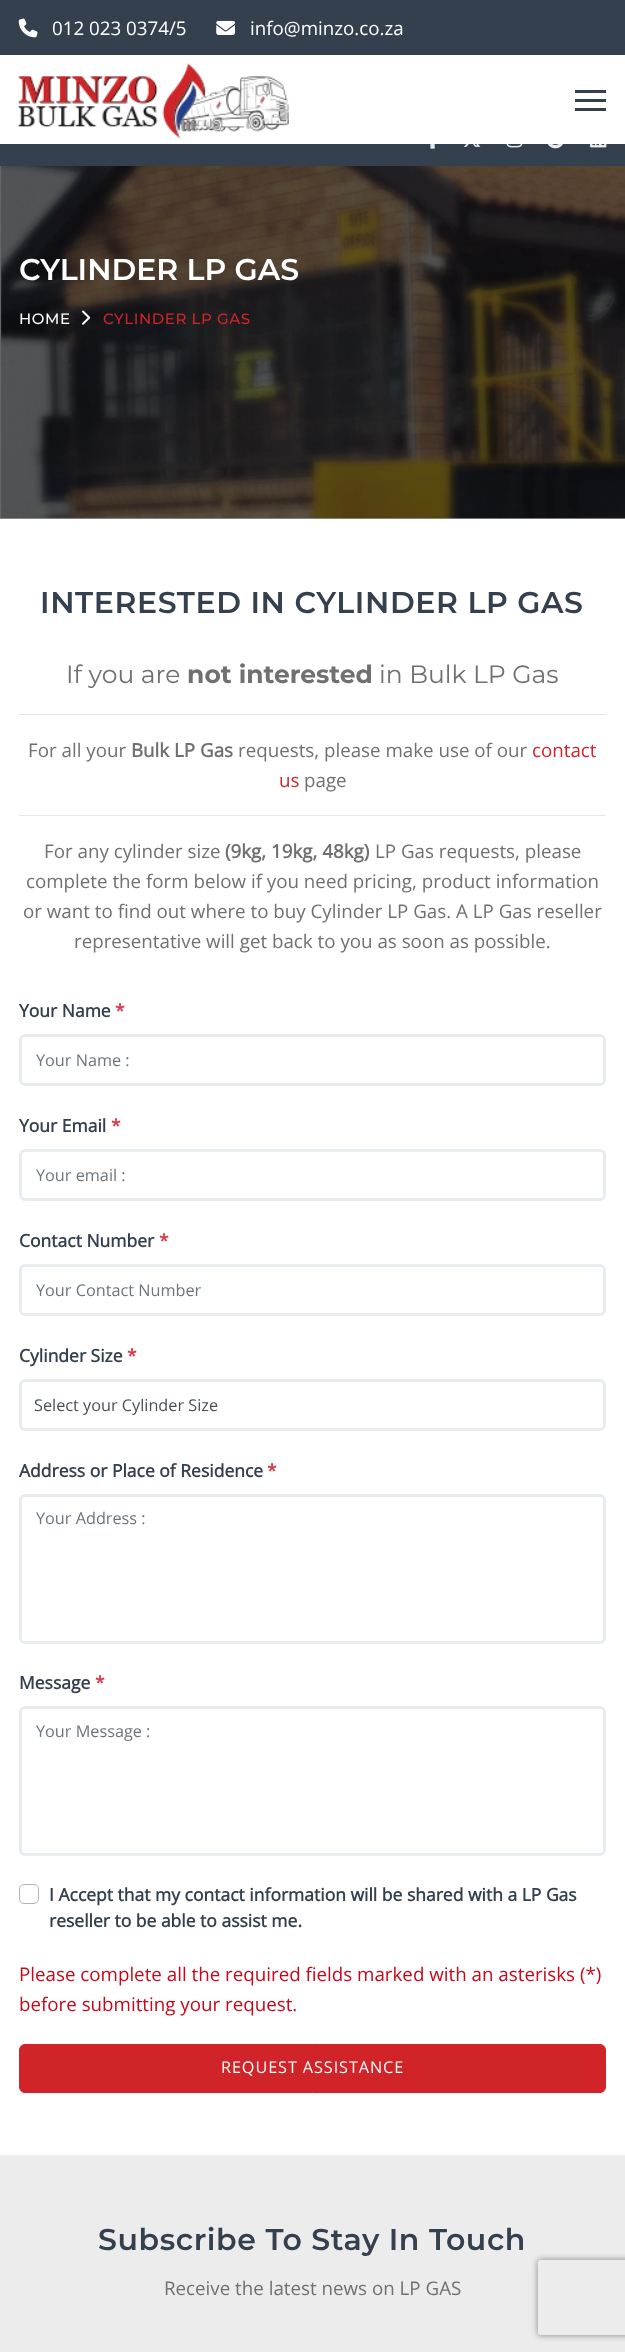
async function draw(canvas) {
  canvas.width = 625;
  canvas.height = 2352;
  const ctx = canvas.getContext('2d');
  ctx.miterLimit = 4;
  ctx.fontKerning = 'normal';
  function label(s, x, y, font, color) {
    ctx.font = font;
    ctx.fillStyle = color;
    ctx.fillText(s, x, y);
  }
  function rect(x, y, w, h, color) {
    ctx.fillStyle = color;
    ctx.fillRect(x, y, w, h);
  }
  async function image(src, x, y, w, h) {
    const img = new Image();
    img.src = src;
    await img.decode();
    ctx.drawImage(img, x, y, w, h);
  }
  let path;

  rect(0, 0, 625, 2352, '#fff');
  rect(0, 0, 625, 166, '#35404e');
  await image('assets/img1.png', 18, 18, 20, 20);
  label('012 023 0374/5', 52, 35, '18.75px Open Sans', '#fff');
  await image('assets/img2.png', 216, 20, 19, 15);
  label('info@minzo.co.za', 250, 35, '18.75px Open Sans', '#fff');
  await image('assets/img3.png', 430, 144, 5, 5);
  await image('assets/img4.png', 463, 144, 18, 3);
  await image('assets/img5.png', 506, 144, 17, 4);
  await image('assets/img6.png', 547, 144, 16, 5);
  await image('assets/img7.png', 590, 144, 17, 4);
  ctx.fillStyle = '#35404e4d';
  ctx.filter = 'blur(6px)';
  ctx.beginPath();
  ctx.rect(0, 55, 625, 89);
  ctx.fill();
  ctx.filter = 'none';
  rect(0, 55, 625, 89, '#fff');
  await image('assets/img8.png', 18, 63, 271, 76);
  rect(575, 90, 31, 3, '#35404e');
  rect(575, 99, 31, 3, '#35404e');
  rect(575, 108, 31, 3, '#35404e');
  await image('assets/img9.png', 0, 166, 625, 353);
  label('CYLINDER LP GAS', 19, 280, '600 30px Montserrat', '#fff');
  ctx.letterSpacing = '0.6px';
  label('HOME', 19, 324, '500 15px Montserrat', '#fff');
  await image('assets/img10.png', 82, 310, 9, 15);
  label('CYLINDER LP GAS', 103, 324, '500 15px Montserrat', '#d12428');
  label('INTERESTED IN CYLINDER LP GAS', 40, 613, '600 30px Montserrat', '#35404e');
  ctx.letterSpacing = '0px';
  label('If you are', 66, 683, '25px Montserrat', '#707070');
  label('not interested', 187, 683, 'bold 25px Montserrat', '#707070');
  label('in Bulk LP Gas', 379, 683, '25px Montserrat', '#707070');
  rect(19, 714, 587, 1, '#e6e6e6');
  label('For all your', 28, 757, '18.75px Open Sans', '#707070');
  label('Bulk LP Gas', 131, 757, 'bold 18.75px Open Sans', '#707070');
  label('requests, please make use of our', 238, 757, '18.75px Open Sans', '#707070');
  label('contact', 532, 757, '18.75px Open Sans', '#d12428');
  label('us', 279, 787, '18.75px Open Sans', '#d12428');
  label('page', 304, 787, '18.75px Open Sans', '#707070');
  rect(19, 815, 587, 1, '#e6e6e6');
  label('For any cylinder size', 44, 858, '18.75px Open Sans', '#707070');
  label('(9kg, 19kg, 48kg)', 225, 858, 'bold 18.75px Open Sans', '#707070');
  label('LP Gas requests, please', 375, 858, '18.75px Open Sans', '#707070');
  label('complete the form below if you need pricing, product information', 26, 888, '18.75px Open Sans', '#707070');
  label('or want to find out where to buy Cylinder LP Gas. A LP Gas reseller', 23, 918, '18.75px Open Sans', '#707070');
  label('representative will get back to you as soon as possible.', 74, 948, '18.75px Open Sans', '#707070');
  label('Your Name', 19, 1017, 'bold 17.5px Open Sans', '#35404e');
  label('*', 115, 1017, 'bold 17.5px Open Sans', '#dc3545');
  ctx.beginPath();
  ctx.roundRect(20.5, 1035.5, 584, 49, 4.5);
  ctx.strokeStyle = '#e9ecef';
  ctx.lineWidth = 3;
  ctx.stroke();
  label('Your Name :', 36, 1066, '16.25px Open Sans', '#6c757d');
  label('Your Email', 19, 1132, 'bold 17.5px Open Sans', '#35404e');
  label('*', 111, 1132, 'bold 17.5px Open Sans', '#dc3545');
  ctx.beginPath();
  ctx.roundRect(20.5, 1150.5, 584, 49, 4.5);
  ctx.stroke();
  label('Your email :', 36, 1181, '16.25px Open Sans', '#6c757d');
  label('Contact Number', 19, 1247, 'bold 17.5px Open Sans', '#35404e');
  label('*', 159, 1247, 'bold 17.5px Open Sans', '#dc3545');
  ctx.beginPath();
  ctx.roundRect(20.5, 1265.5, 584, 49, 4.5);
  ctx.stroke();
  label('Your Contact Number', 36, 1296, '16.25px Open Sans', '#6c757d');
  label('Cylinder Size', 19, 1362, 'bold 17.5px Open Sans', '#35404e');
  label('*', 127, 1362, 'bold 17.5px Open Sans', '#dc3545');
  ctx.beginPath();
  ctx.roundRect(20.5, 1380.5, 584, 49, 4.5);
  ctx.stroke();
  label('Select your Cylinder Size', 34, 1411, '16.25px Open Sans', '#495057');
  label('Address or Place of Residence', 19, 1477, 'bold 17.5px Open Sans', '#35404e');
  label('*', 267, 1477, 'bold 17.5px Open Sans', '#dc3545');
  ctx.beginPath();
  ctx.roundRect(20.5, 1495.5, 584, 147, 4.5);
  ctx.stroke();
  label('Your Address :', 36, 1524, '16.25px Open Sans', '#6c757d');
  label('Message', 19, 1689, 'bold 17.5px Open Sans', '#35404e');
  label('*', 95, 1689, 'bold 17.5px Open Sans', '#dc3545');
  ctx.beginPath();
  ctx.roundRect(20.5, 1707.5, 584, 147, 4.5);
  ctx.stroke();
  label('Your Message :', 36, 1737, '16.25px Open Sans', '#6c757d');
  ctx.beginPath();
  ctx.roundRect(19.5, 1884.5, 19, 19, 4.5);
  ctx.strokeStyle = '#adb5bd';
  ctx.lineWidth = 1;
  ctx.stroke();
  label('I Accept that my contact information will be shared with a LP Gas', 49, 1901, 'bold 17.5px Open Sans', '#35404e');
  label('reseller to be able to assist me.', 49, 1927, 'bold 17.5px Open Sans', '#35404e');
  label('Please complete all the required fields marked with an asterisks (*)', 19, 1981, '18.75px Open Sans', '#c7081b');
  label('before submitting your request.', 19, 2011, '18.75px Open Sans', '#c7081b');
  ctx.fillStyle = '#d12428';
  ctx.beginPath();
  ctx.roundRect(19.5, 2044.5, 586, 48, 5.5);
  ctx.fill();
  ctx.strokeStyle = '#d12428';
  ctx.stroke();
  ctx.letterSpacing = '0.9px';
  label('REQUEST ASSISTANCE', 221, 2073, '16.25px Open Sans', '#fff');
  rect(0, 2155, 625, 197, '#ececec');
  ctx.letterSpacing = '0.6px';
  label('Subscribe To Stay In Touch', 98, 2250, '600 30px Montserrat', '#35404e');
  ctx.letterSpacing = '0px';
  label('Receive the latest news on LP GAS', 164, 2295, '18.75px Open Sans', '#707070');
  ctx.save();
  path = new Path2D('M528 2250H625V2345H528ZM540.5 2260H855.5C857 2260 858 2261 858 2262.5V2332.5C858 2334 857 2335 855.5 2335H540.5C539 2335 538 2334 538 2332.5V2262.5C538 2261 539 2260 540.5 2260Z');
  ctx.clip(path, 'evenodd');
  ctx.fillStyle = '#808080';
  ctx.filter = 'blur(3px)';
  ctx.beginPath();
  ctx.roundRect(538, 2260, 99, 75, 2.5);
  ctx.fill();
  ctx.filter = 'none';
  ctx.restore();
}

draw(document.querySelector('canvas'));
